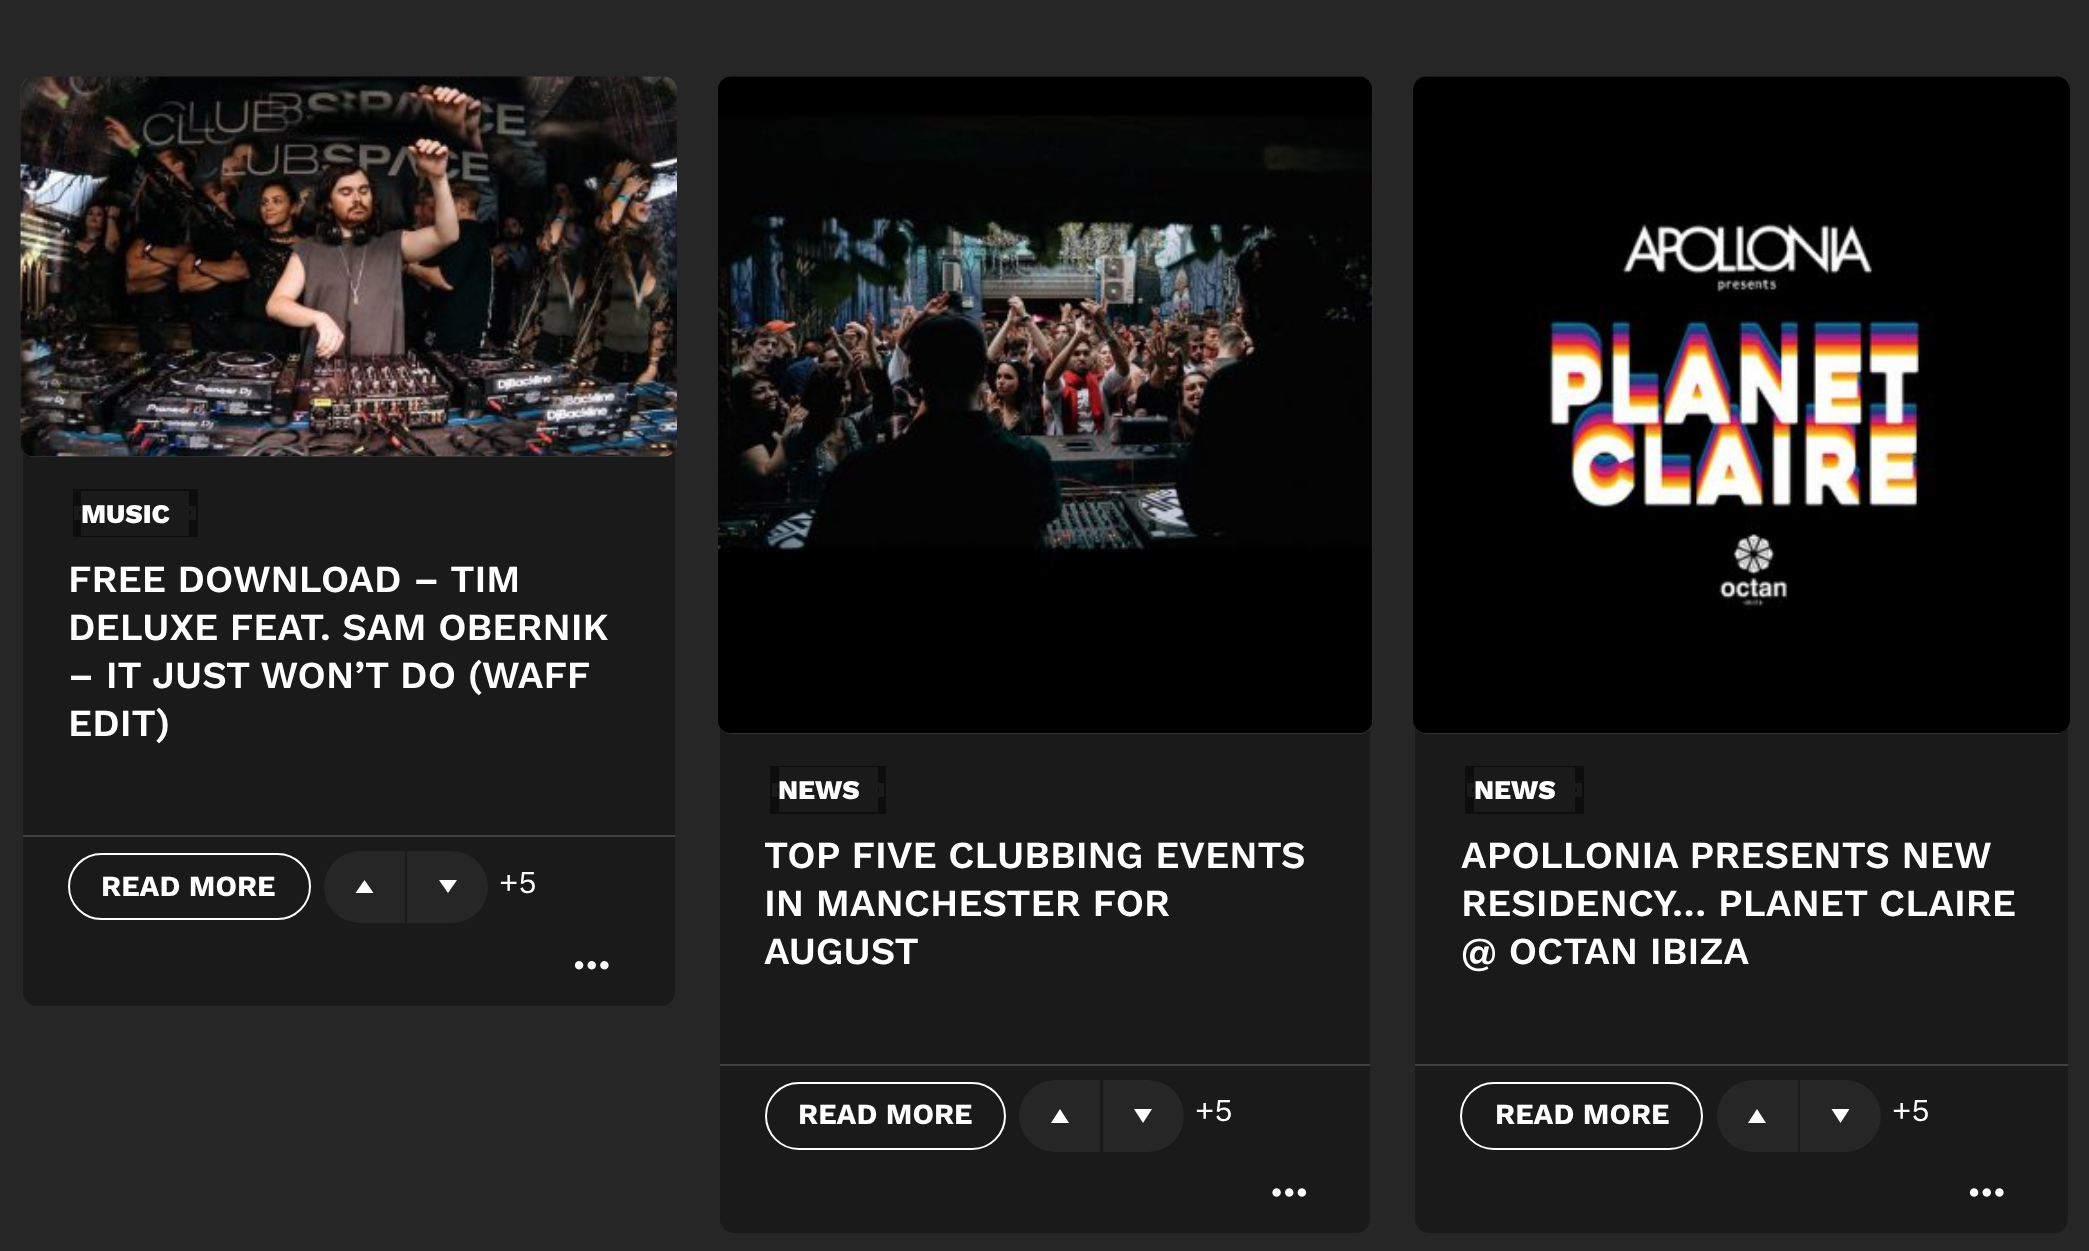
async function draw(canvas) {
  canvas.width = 2089;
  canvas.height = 1251;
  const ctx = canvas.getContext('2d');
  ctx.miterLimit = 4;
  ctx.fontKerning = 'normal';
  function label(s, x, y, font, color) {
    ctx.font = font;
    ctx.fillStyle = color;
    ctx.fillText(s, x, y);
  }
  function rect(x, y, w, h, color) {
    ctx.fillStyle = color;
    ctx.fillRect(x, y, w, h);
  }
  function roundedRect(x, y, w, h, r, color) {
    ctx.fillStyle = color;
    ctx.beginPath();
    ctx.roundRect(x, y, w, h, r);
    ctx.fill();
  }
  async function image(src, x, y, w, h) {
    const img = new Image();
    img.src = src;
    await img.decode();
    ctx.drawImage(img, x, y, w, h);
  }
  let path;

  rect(0, 0, 2089, 1251, '#262626');
  roundedRect(23, 79, 652, 927, 14, '#1a1a1a');
  roundedRect(20, 77, 657, 380, 14, '#333');
  await image('assets/img1.png', 20, 76, 657, 381);
  rect(73, 489, 125, 48, '#0d0d0d');
  ctx.strokeStyle = '#1a1a1a';
  ctx.lineWidth = 5;
  ctx.strokeRect(76.5, 508.5, 117, 9);
  rect(81, 491, 108, 45, '#1a1a1a');
  label('MUSIC', 81, 523, '800 27px Work Sans', '#fff');
  label('FREE DOWNLOAD – TIM', 68, 592, '600 38.25px Work Sans', '#fff');
  label('DELUXE FEAT. SAM OBERNIK', 68, 640, '600 38.25px Work Sans', '#fff');
  label('– IT JUST WON’T DO (WAFF', 68, 688, '600 38.25px Work Sans', '#fff');
  label('EDIT)', 68, 736, '600 38.25px Work Sans', '#fff');
  rect(23, 835, 652, 2, '#404040');
  ctx.beginPath();
  ctx.roundRect(69, 854, 241, 65, 32.5);
  ctx.strokeStyle = '#fff';
  ctx.lineWidth = 2;
  ctx.stroke();
  label('READ MORE', 101, 896, 'bold 29.25px Work Sans', '#fff');
  ctx.fillStyle = '#262626';
  ctx.beginPath();
  ctx.roundRect(324, 851, 81, 72, [36, 0, 0, 36]);
  ctx.fill();
  ctx.fillStyle = '#fff';
  path = new Path2D('M364.5 880L355.5 893H373.5Z');
  ctx.fill(path);
  ctx.fillStyle = '#262626';
  ctx.beginPath();
  ctx.roundRect(407, 851, 81, 72, [0, 36, 36, 0]);
  ctx.fill();
  ctx.fillStyle = '#fff';
  path = new Path2D('M448 893L439 880H457Z');
  ctx.fill(path);
  label('+5', 499, 893, '32px Work Sans', '#fff');
  await image('assets/img2.png', 574, 961, 35, 9);
  roundedRect(720, 79, 650, 1154, 14, '#1a1a1a');
  roundedRect(718, 77, 655, 657, 14, '#333');
  await image('assets/img3.png', 718, 76, 655, 657);
  rect(770, 766, 116, 48, '#0d0d0d');
  ctx.strokeStyle = '#1a1a1a';
  ctx.lineWidth = 5;
  ctx.strokeRect(774.5, 785.5, 107, 9);
  rect(779, 767, 99, 45, '#1a1a1a');
  label('NEWS', 778, 799, '800 27px Work Sans', '#fff');
  label('TOP FIVE CLUBBING EVENTS', 764, 868, '600 38.25px Work Sans', '#fff');
  label('IN MANCHESTER FOR', 764, 916, '600 38.25px Work Sans', '#fff');
  label('AUGUST', 764, 964, '600 38.25px Work Sans', '#fff');
  rect(720, 1064, 650, 2, '#404040');
  ctx.beginPath();
  ctx.roundRect(766, 1083, 239, 66, 33);
  ctx.strokeStyle = '#fff';
  ctx.lineWidth = 2;
  ctx.stroke();
  label('READ MORE', 798, 1124, 'bold 29.25px Work Sans', '#fff');
  ctx.fillStyle = '#262626';
  ctx.beginPath();
  ctx.roundRect(1019, 1080, 81, 72, [36, 0, 0, 36]);
  ctx.fill();
  ctx.fillStyle = '#fff';
  path = new Path2D('M1060 1109L1051 1123H1069Z');
  ctx.fill(path);
  ctx.fillStyle = '#262626';
  ctx.beginPath();
  ctx.roundRect(1103, 1080, 81, 72, [0, 36, 36, 0]);
  ctx.fill();
  ctx.fillStyle = '#fff';
  path = new Path2D('M1143 1123L1134 1109H1152Z');
  ctx.fill(path);
  label('+5', 1195, 1121, '32px Work Sans', '#fff');
  await image('assets/img4.png', 1272, 1188, 35, 9);
  roundedRect(1415, 79, 653, 1154, 14, '#1a1a1a');
  roundedRect(1413, 77, 657, 657, 14, '#333');
  await image('assets/img5.png', 1413, 76, 657, 657);
  rect(1465, 766, 119, 48, '#0d0d0d');
  ctx.strokeStyle = '#1a1a1a';
  ctx.lineWidth = 5;
  ctx.strokeRect(1469.5, 785.5, 110, 9);
  rect(1474, 767, 101, 45, '#1a1a1a');
  label('NEWS', 1474, 799, '800 27px Work Sans', '#fff');
  label('APOLLONIA PRESENTS NEW', 1461, 868, '600 38.25px Work Sans', '#fff');
  label('RESIDENCY… PLANET CLAIRE', 1461, 916, '600 38.25px Work Sans', '#fff');
  label('@ OCTAN IBIZA', 1461, 964, '600 38.25px Work Sans', '#fff');
  rect(1415, 1064, 653, 2, '#404040');
  ctx.beginPath();
  ctx.roundRect(1461, 1083, 241, 66, 33);
  ctx.strokeStyle = '#fff';
  ctx.lineWidth = 2;
  ctx.stroke();
  label('READ MORE', 1495, 1124, 'bold 29.25px Work Sans', '#fff');
  ctx.fillStyle = '#262626';
  ctx.beginPath();
  ctx.roundRect(1717, 1080, 81, 72, [36, 0, 0, 36]);
  ctx.fill();
  ctx.fillStyle = '#fff';
  path = new Path2D('M1757 1109L1748 1123H1766Z');
  ctx.fill(path);
  ctx.fillStyle = '#262626';
  ctx.beginPath();
  ctx.roundRect(1800, 1080, 81, 72, [0, 36, 36, 0]);
  ctx.fill();
  ctx.fillStyle = '#fff';
  path = new Path2D('M1840.5 1123L1831.5 1109H1849.5Z');
  ctx.fill(path);
  label('+5', 1892, 1121, '32px Work Sans', '#fff');
  await image('assets/img6.png', 1969, 1188, 35, 9);
}

draw(document.querySelector('canvas'));
